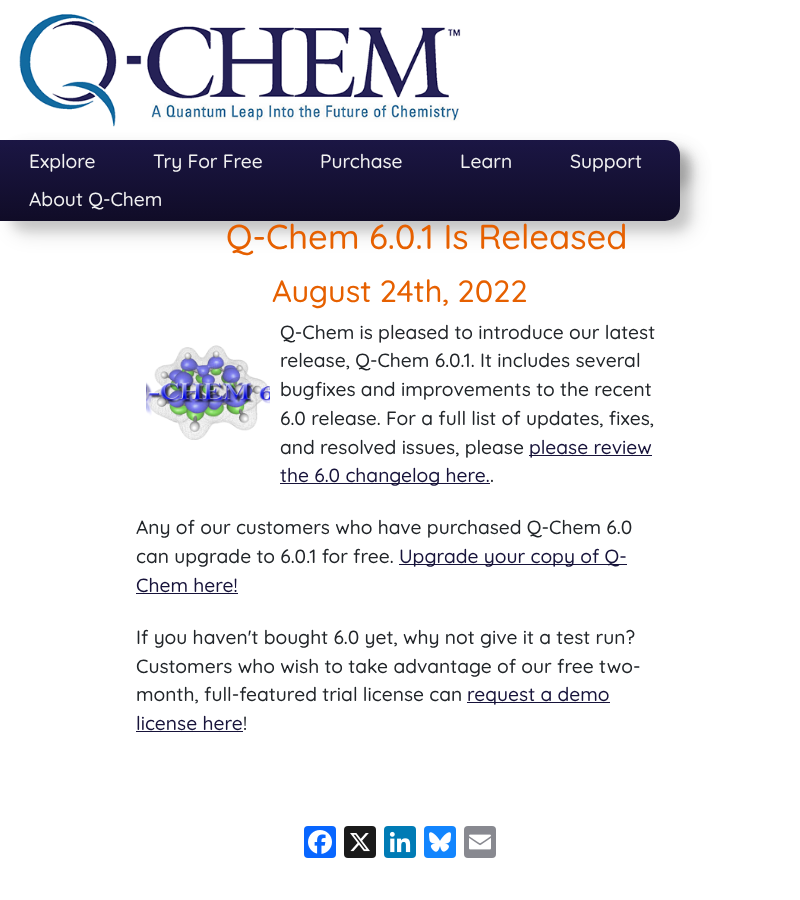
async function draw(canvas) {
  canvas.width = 800;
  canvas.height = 900;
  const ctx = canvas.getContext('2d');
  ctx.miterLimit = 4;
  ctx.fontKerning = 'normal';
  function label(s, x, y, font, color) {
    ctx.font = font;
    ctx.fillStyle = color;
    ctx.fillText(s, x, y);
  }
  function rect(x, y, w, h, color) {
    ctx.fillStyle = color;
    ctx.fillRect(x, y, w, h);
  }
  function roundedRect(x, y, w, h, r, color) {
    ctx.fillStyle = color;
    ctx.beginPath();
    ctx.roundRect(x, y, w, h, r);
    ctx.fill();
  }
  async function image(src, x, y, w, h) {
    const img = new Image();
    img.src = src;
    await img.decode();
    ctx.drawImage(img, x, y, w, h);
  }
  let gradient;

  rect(0, 0, 800, 900, '#fff');
  await image('assets/img1.png', 19, 14, 442, 113);
  ctx.fillStyle = '#0000001a';
  ctx.filter = 'blur(10px)';
  ctx.beginPath();
  ctx.roundRect(12, 152, 680, 39, 15);
  ctx.fill();
  ctx.filter = 'none';
  ctx.filter = 'blur(5px)';
  ctx.beginPath();
  ctx.roundRect(10, 150, 680, 39, 15);
  ctx.fill();
  ctx.filter = 'none';
  ctx.fillStyle = '#00000026';
  ctx.filter = 'blur(10px)';
  ctx.beginPath();
  ctx.roundRect(12, 152, 680, 81, 15);
  ctx.fill();
  ctx.filter = 'none';
  ctx.fillStyle = '#0000001a';
  ctx.filter = 'blur(5px)';
  ctx.beginPath();
  ctx.roundRect(10, 150, 680, 81, 15);
  ctx.fill();
  ctx.filter = 'none';
  gradient = ctx.createLinearGradient(340, 140, 340, 221);
  gradient.addColorStop(0, '#1b1644');
  gradient.addColorStop(1, '#100c27');
  ctx.fillStyle = gradient;
  ctx.beginPath();
  ctx.roundRect(0, 140, 680, 81, [0, 15, 15, 0]);
  ctx.fill();
  label('Explore', 29, 168, '300 19.2px Quicksand', '#f2f2f2');
  label('Try For Free', 153, 168, '300 19.2px Quicksand', '#f2f2f2');
  label('Purchase', 320, 168, '300 19.2px Quicksand', '#f2f2f2');
  label('Learn', 460, 168, '300 19.2px Quicksand', '#f2f2f2');
  label('Support', 570, 168, '300 19.2px Quicksand', '#f2f2f2');
  label('About Q-Chem', 29, 206, '300 19.2px Quicksand', '#f2f2f2');
  label('Q-Chem 6.0.1 Is Released', 226, 249, '300 34.5px Quicksand', '#e66000');
  label('August 24th, 2022', 272, 302, '300 30.75px Quicksand', '#e66000');
  label('Q-Chem is pleased to introduce our latest', 280, 339, '300 19.2px Quicksand', '#212529');
  label('release, Q-Chem 6.0.1. It includes several', 280, 367, '300 19.2px Quicksand', '#212529');
  label('bugfixes and improvements to the recent', 280, 396, '300 19.2px Quicksand', '#212529');
  label('6.0 release. For a full list of updates, fixes,', 280, 425, '300 19.2px Quicksand', '#212529');
  label('and resolved issues, please', 280, 454, '300 19.2px Quicksand', '#212529');
  rect(529, 455, 123, 1, '#17133a');
  label('please review', 529, 454, '300 19.2px Quicksand', '#17133a');
  rect(280, 483, 210, 1, '#17133a');
  label('the 6.0 changelog here.', 280, 482, '300 19.2px Quicksand', '#17133a');
  label('.', 490, 482, '300 19.2px Quicksand', '#212529');
  label('Any of our customers who have purchased Q-Chem 6.0', 136, 534, '300 19.2px Quicksand', '#212529');
  label('can upgrade to 6.0.1 for free.', 136, 563, '300 19.2px Quicksand', '#212529');
  rect(399, 564, 228, 1, '#17133a');
  label('Upgrade your copy of Q-', 399, 563, '300 19.2px Quicksand', '#17133a');
  label('Chem here!', 136, 592, '300 19.2px Quicksand', '#17133a');
  rect(136, 593, 102, 1, '#17133a');
  label('If you haven\'t bought 6.0 yet, why not give it a test run?', 136, 644, '300 19.2px Quicksand', '#212529');
  label('Customers who wish to take advantage of our free two-', 136, 673, '300 19.2px Quicksand', '#212529');
  label('month, full-featured trial license can', 136, 701, '300 19.2px Quicksand', '#212529');
  rect(467, 702, 143, 1, '#17133a');
  label('request a demo', 467, 701, '300 19.2px Quicksand', '#17133a');
  label('license here', 136, 730, '300 19.2px Quicksand', '#17133a');
  rect(136, 731, 107, 1, '#17133a');
  label('!', 243, 730, '300 19.2px Quicksand', '#212529');
  await image('assets/img2.png', 146, 345, 124, 95);
  roundedRect(304, 826, 32, 32, 4, '#0866ff');
  await image('assets/img3.png', 308, 830, 24, 24);
  roundedRect(344, 826, 32, 32, 4, '#1a1a1a');
  await image('assets/img4.png', 350, 833, 20, 19);
  roundedRect(384, 826, 32, 32, 4, '#007bb5');
  await image('assets/img5.png', 389, 831, 22, 22);
  roundedRect(424, 826, 32, 32, 4, '#1285fe');
  await image('assets/img6.png', 429, 832, 22, 20);
  roundedRect(464, 826, 32, 32, 4, '#888990');
  await image('assets/img7.png', 469, 834, 22, 16);
}

draw(document.querySelector('canvas'));
